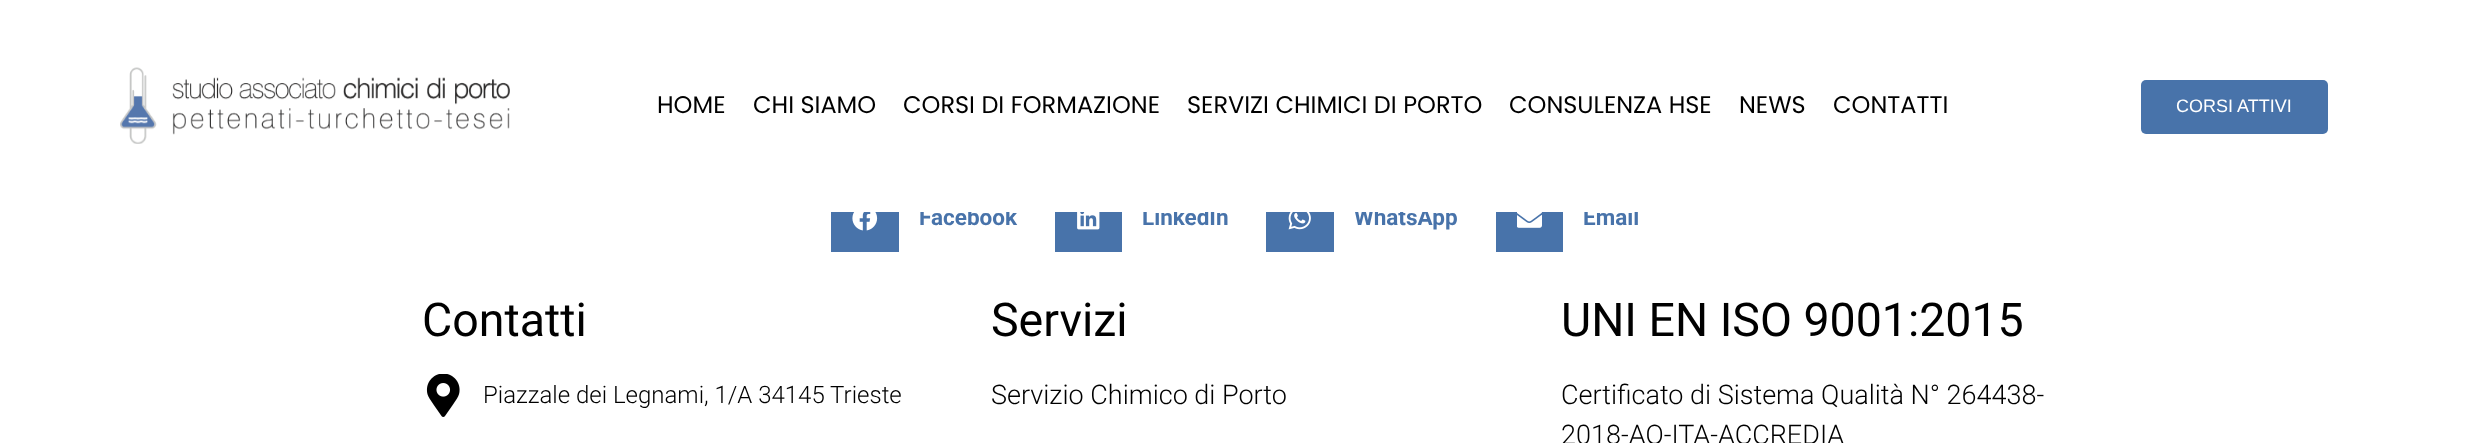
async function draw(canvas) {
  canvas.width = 2492;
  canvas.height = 443;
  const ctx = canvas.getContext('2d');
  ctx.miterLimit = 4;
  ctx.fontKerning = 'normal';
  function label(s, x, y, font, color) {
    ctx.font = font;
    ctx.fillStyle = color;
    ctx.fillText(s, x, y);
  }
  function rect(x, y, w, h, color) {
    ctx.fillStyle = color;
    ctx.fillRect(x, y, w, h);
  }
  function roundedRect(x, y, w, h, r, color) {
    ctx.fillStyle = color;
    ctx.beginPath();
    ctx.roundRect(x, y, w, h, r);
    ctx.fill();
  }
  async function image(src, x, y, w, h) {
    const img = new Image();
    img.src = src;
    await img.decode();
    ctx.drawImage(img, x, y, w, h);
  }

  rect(0, 0, 2492, 443, '#fff');
  label('Facebook', 919, 225, 'bold 22.5px Roboto', '#4873aa');
  label('LinkedIn', 1142, 225, 'bold 22.5px Roboto', '#4873aa');
  label('WhatsApp', 1354, 225, 'bold 22.5px Roboto', '#4873aa');
  label('Email', 1583, 225, 'bold 22.5px Roboto', '#4873aa');
  rect(920, 208, 718, 4, '#fff');
  await image('assets/img1.png', 120, 67, 390, 77);
  label('HOME', 657, 113, '24px Poppins', '#000');
  label('CHI SIAMO', 753, 113, '24px Poppins', '#000');
  label('CORSI DI FORMAZIONE', 903, 113, '24px Poppins', '#000');
  label('SERVIZI CHIMICI DI PORTO', 1187, 113, '24px Poppins', '#000');
  label('CONSULENZA HSE', 1509, 113, '24px Poppins', '#000');
  label('NEWS', 1739, 113, '24px Poppins', '#000');
  label('CONTATTI', 1833, 113, '24px Poppins', '#000');
  roundedRect(2141, 80, 187, 54, 5, '#4873aa');
  label('CORSI ATTIVI', 2176, 112, '18px Liberation Sans', '#fff');
  rect(831, 212, 68, 40, '#4873aa');
  await image('assets/img2.png', 852, 212, 26, 19);
  rect(1055, 212, 67, 40, '#4873aa');
  await image('assets/img3.png', 1077, 212, 23, 18);
  rect(1266, 212, 68, 40, '#4873aa');
  await image('assets/img4.png', 1288, 212, 23, 18);
  rect(1496, 212, 67, 40, '#4873aa');
  await image('assets/img5.png', 1517, 212, 25, 16);
  label('Contatti', 422, 336, '46.5px Roboto', '#000');
  await image('assets/img6.png', 426, 374, 34, 43);
  label('Piazzale dei Legnami, 1/A 34145 Trieste', 483, 403, '300 24px Roboto', '#000');
  label('Servizi', 991, 336, '46.5px Roboto', '#000');
  label('Servizio Chimico di Porto', 991, 404, '300 27px Roboto', '#000');
  label('UNI EN ISO 9001:2015', 1561, 336, '46.5px Roboto', '#000');
  label('Certificato di Sistema Qualità N° 264438-', 1561, 404, '300 27px Roboto', '#000');
  label('2018-AQ-ITA-ACCREDIA', 1561, 444, '300 27px Roboto', '#000');
}

draw(document.querySelector('canvas'));
